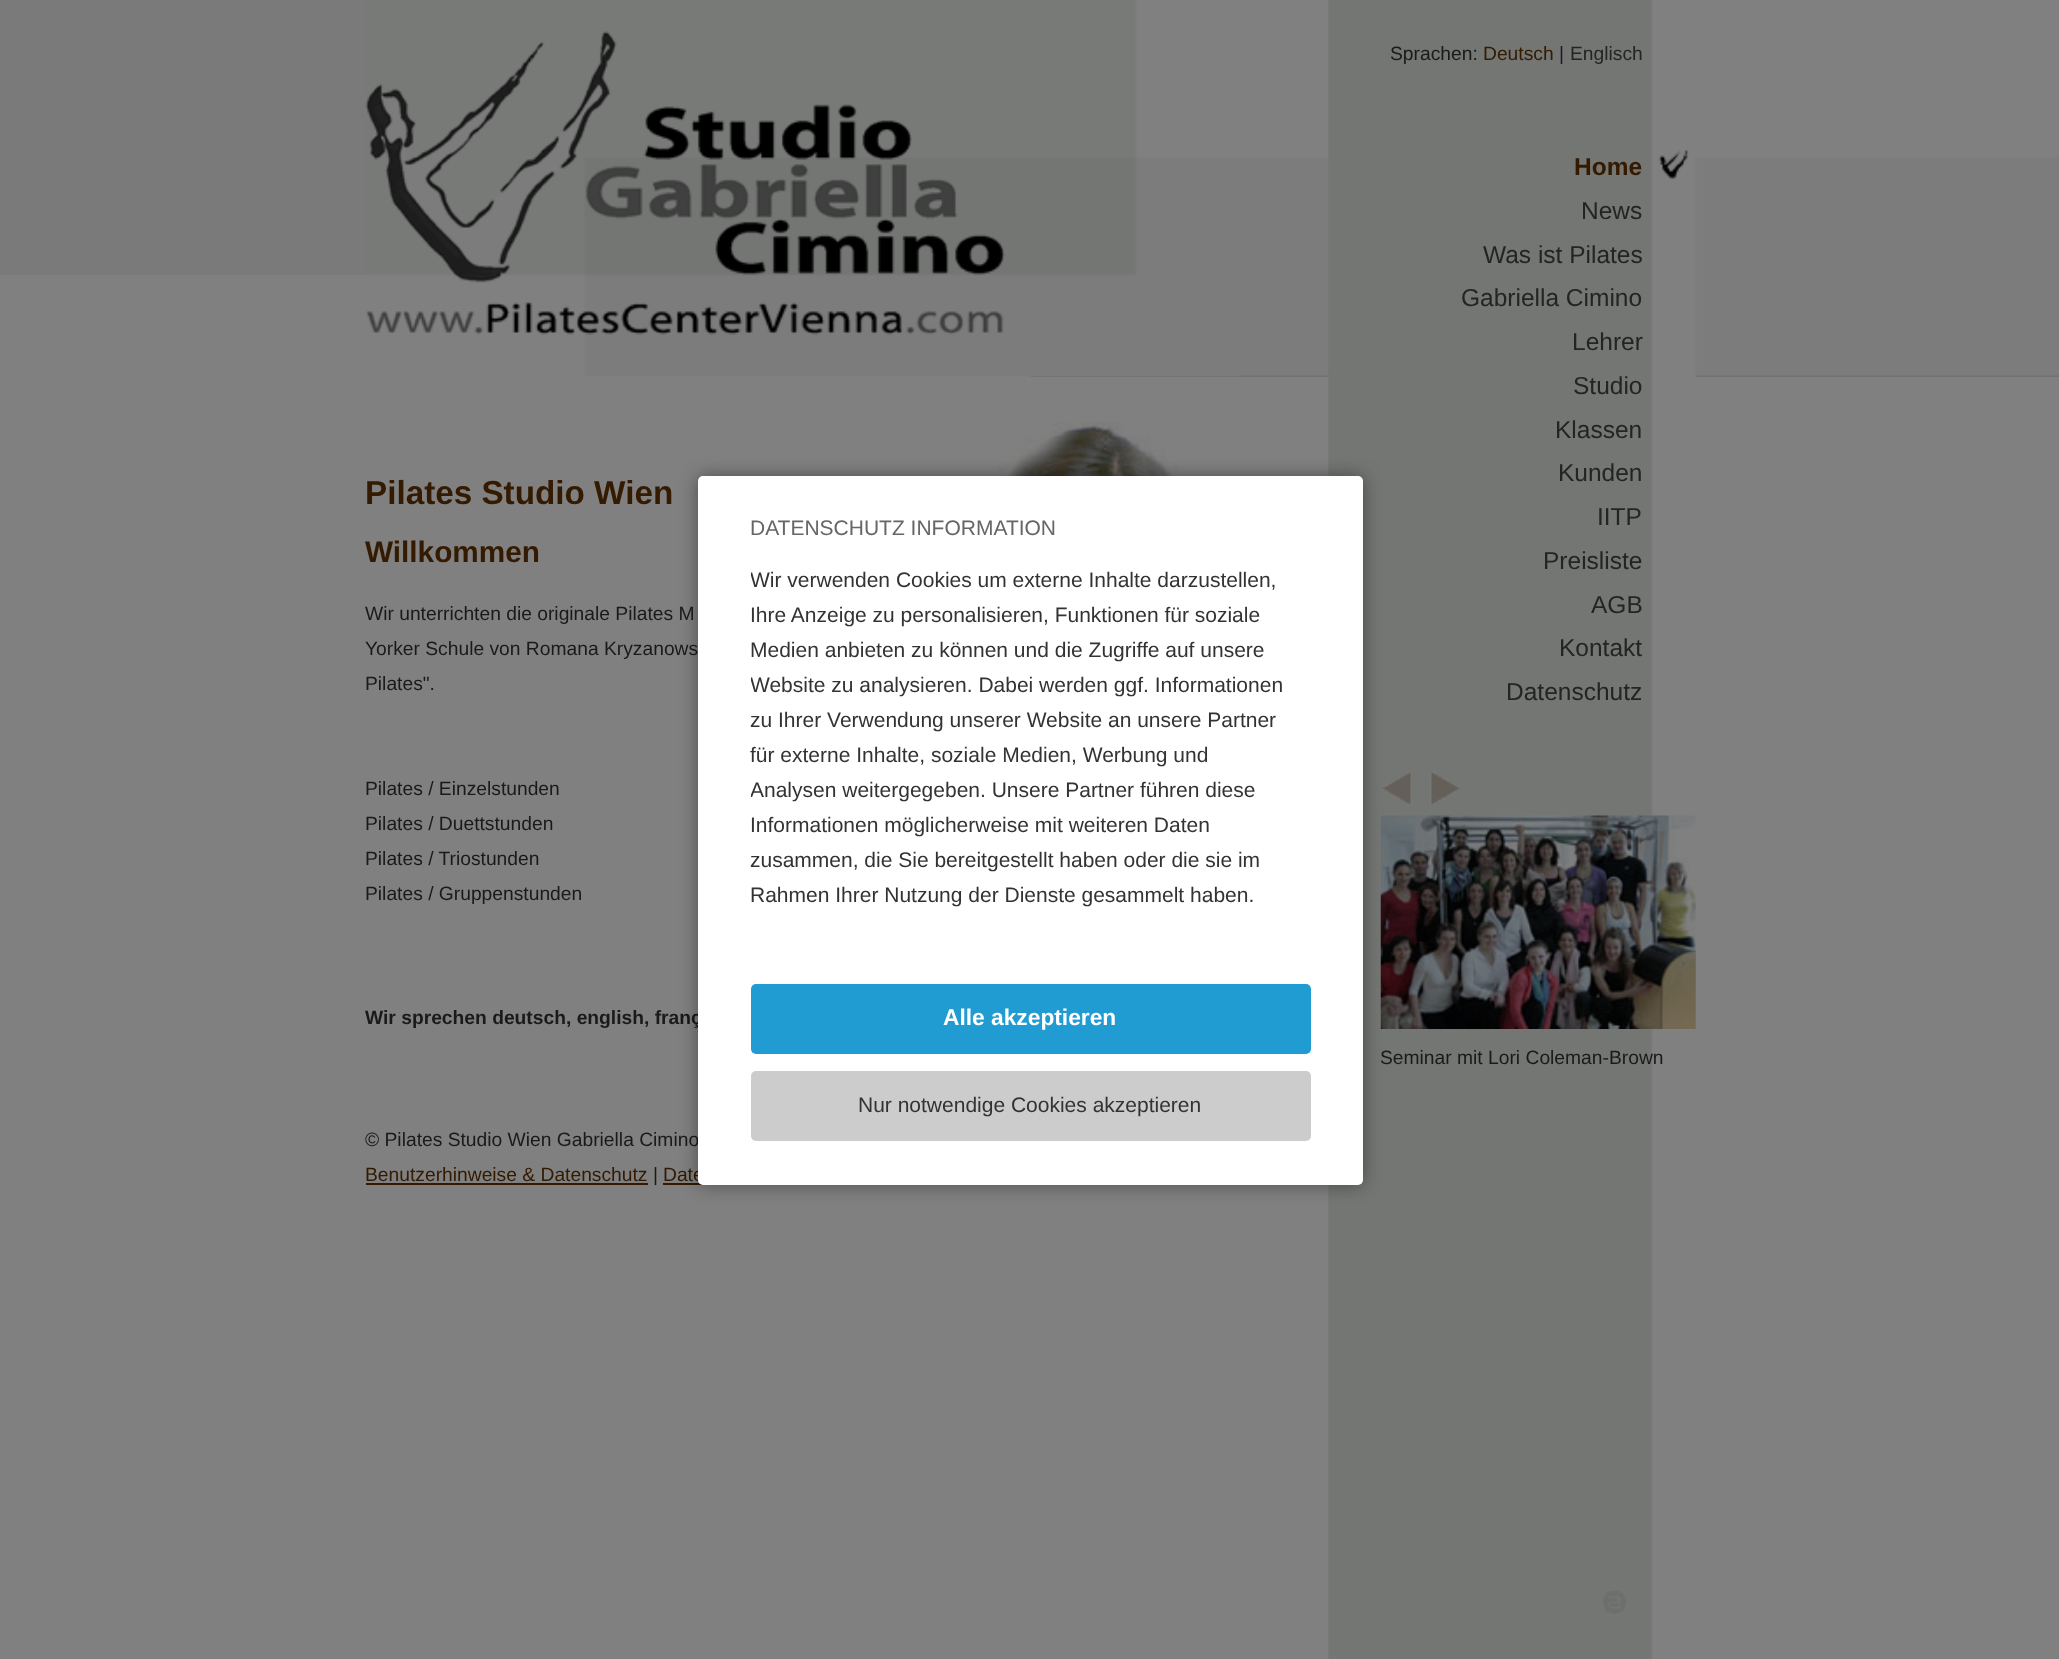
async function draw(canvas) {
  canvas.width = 2059;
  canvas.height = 1659;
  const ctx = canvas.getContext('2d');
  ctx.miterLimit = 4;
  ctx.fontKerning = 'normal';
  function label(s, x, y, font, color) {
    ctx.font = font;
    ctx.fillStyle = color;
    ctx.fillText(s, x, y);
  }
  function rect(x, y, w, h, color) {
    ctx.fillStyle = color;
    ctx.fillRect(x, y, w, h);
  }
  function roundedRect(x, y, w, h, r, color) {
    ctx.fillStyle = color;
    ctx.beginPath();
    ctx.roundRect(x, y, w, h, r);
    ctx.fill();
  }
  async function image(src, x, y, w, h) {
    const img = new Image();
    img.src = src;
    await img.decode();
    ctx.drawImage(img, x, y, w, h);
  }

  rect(0, 0, 2059, 1659, '#808080');
  rect(0, 0, 366, 275, '#7a7a7a');
  await image('assets/img1.png', 1030, 0, 1029, 377);
  await image('assets/img2.png', 365, 0, 876, 377);
  await image('assets/img3.png', 885, 422, 374, 54);
  label('Pilates Studio Wien', 365, 504, 'bold 33.25px Liberation Sans', '#331a00');
  label('Willkommen', 365, 562, 'bold 29.75px Liberation Sans', '#331a00');
  label('Wir unterrichten die originale Pilates M', 365, 620, '19.25px Liberation Sans', '#1a1a1a');
  label('Yorker Schule von Romana Kryzanows', 365, 655, '19.25px Liberation Sans', '#1a1a1a');
  label('Pilates".', 365, 690, '19.25px Liberation Sans', '#1a1a1a');
  label('Pilates / Einzelstunden', 365, 795, '19.25px Liberation Sans', '#1a1a1a');
  label('Pilates / Duettstunden', 365, 830, '19.25px Liberation Sans', '#1a1a1a');
  label('Pilates / Triostunden', 365, 865, '19.25px Liberation Sans', '#1a1a1a');
  label('Pilates / Gruppenstunden', 365, 900, '19.25px Liberation Sans', '#1a1a1a');
  label('Wir sprechen deutsch, english, franç', 365, 1024, 'bold 19.25px Liberation Sans', '#1a1a1a');
  label('© Pilates Studio Wien Gabriella Cimino', 365, 1146, '19.25px Liberation Sans', '#1a1a1a');
  label('Benutzerhinweise & Datenschutz', 365, 1181, '19.25px Liberation Sans', '#331a00');
  rect(366, 1183, 282, 2, '#331a00');
  label('|', 653, 1181, '19.25px Liberation Sans', '#1a1a1a');
  label('Date', 663, 1181, '19.25px Liberation Sans', '#331a00');
  rect(663, 1183, 40, 2, '#331a00');
  await image('assets/img4.png', 1328, 0, 369, 1659);
  label('Sprachen:', 1390, 60, '19.25px Liberation Sans', '#1a1a1a');
  label('Deutsch', 1483, 60, '19.25px Liberation Sans', '#331a00');
  label('|', 1559, 60, '19.25px Liberation Sans', '#1a1a1a');
  label('Englisch', 1570, 60, '19.25px Liberation Sans', '#232423');
  await image('assets/img5.png', 1658, 150, 31, 29);
  label('Home', 1574, 175, 'bold 24.5px Liberation Sans', '#331a00');
  label('News', 1581, 219, '24.5px Liberation Sans', '#232423');
  label('Was ist Pilates', 1483, 263, '24.5px Liberation Sans', '#232423');
  label('Gabriella Cimino', 1461, 306, '24.5px Liberation Sans', '#232423');
  label('Lehrer', 1572, 350, '24.5px Liberation Sans', '#232423');
  label('Studio', 1573, 394, '24.5px Liberation Sans', '#232423');
  label('Klassen', 1555, 438, '24.5px Liberation Sans', '#232423');
  label('Kunden', 1558, 481, '24.5px Liberation Sans', '#232423');
  label('IITP', 1597, 525, '24.5px Liberation Sans', '#232423');
  label('Preisliste', 1543, 569, '24.5px Liberation Sans', '#232423');
  label('AGB', 1591, 613, '24.5px Liberation Sans', '#232423');
  label('Kontakt', 1559, 656, '24.5px Liberation Sans', '#232423');
  label('Datenschutz', 1506, 700, '24.5px Liberation Sans', '#232423');
  await image('assets/img6.png', 1382, 771, 30, 35);
  await image('assets/img7.png', 1430, 771, 30, 35);
  await image('assets/img8.png', 1380, 815, 316, 214);
  label('Seminar mit Lori Coleman-Brown', 1380, 1064, '19.25px Liberation Sans', '#1a1a1a');
  await image('assets/img9.png', 1603, 1591, 23, 23);
  ctx.fillStyle = '#00000066';
  ctx.filter = 'blur(9px)';
  ctx.beginPath();
  ctx.roundRect(698, 476, 665, 709, 5);
  ctx.fill();
  ctx.filter = 'none';
  roundedRect(698, 476, 665, 709, 5, '#fff');
  label('DATENSCHUTZ INFORMATION', 750, 535, '21px Liberation Sans', '#666');
  ctx.save();
  ctx.beginPath();
  ctx.roundRect(751, 564, 560, 385, 5);
  ctx.clip();
  label('Wir verwenden Cookies um externe Inhalte darzustellen,', 750, 587, '21px Liberation Sans', '#333');
  ctx.restore();
  label('Ihre Anzeige zu personalisieren, Funktionen für soziale', 750, 622, '21px Liberation Sans', '#333');
  label('Medien anbieten zu können und die Zugriffe auf unsere', 750, 657, '21px Liberation Sans', '#333');
  ctx.save();
  ctx.beginPath();
  ctx.roundRect(751, 564, 560, 385, 5);
  ctx.clip();
  label('Website zu analysieren. Dabei werden ggf. Informationen', 750, 692, '21px Liberation Sans', '#333');
  ctx.restore();
  label('zu Ihrer Verwendung unserer Website an unsere Partner', 750, 727, '21px Liberation Sans', '#333');
  label('für externe Inhalte, soziale Medien, Werbung und', 750, 762, '21px Liberation Sans', '#333');
  ctx.save();
  ctx.beginPath();
  ctx.roundRect(751, 564, 560, 385, 5);
  ctx.clip();
  label('Analysen weitergegeben. Unsere Partner führen diese', 750, 797, '21px Liberation Sans', '#333');
  ctx.restore();
  label('Informationen möglicherweise mit weiteren Daten', 750, 832, '21px Liberation Sans', '#333');
  label('zusammen, die Sie bereitgestellt haben oder die sie im', 750, 867, '21px Liberation Sans', '#333');
  label('Rahmen Ihrer Nutzung der Dienste gesammelt haben.', 750, 902, '21px Liberation Sans', '#333');
  roundedRect(751, 984, 560, 70, 5, '#209cd2');
  label('Alle akzeptieren', 943, 1025, 'bold 22.75px Liberation Sans', '#fff');
  roundedRect(751, 1071, 560, 70, 5, '#ccc');
  label('Nur notwendige Cookies akzeptieren', 858, 1112, '21px Liberation Sans', '#333');
}

draw(document.querySelector('canvas'));
